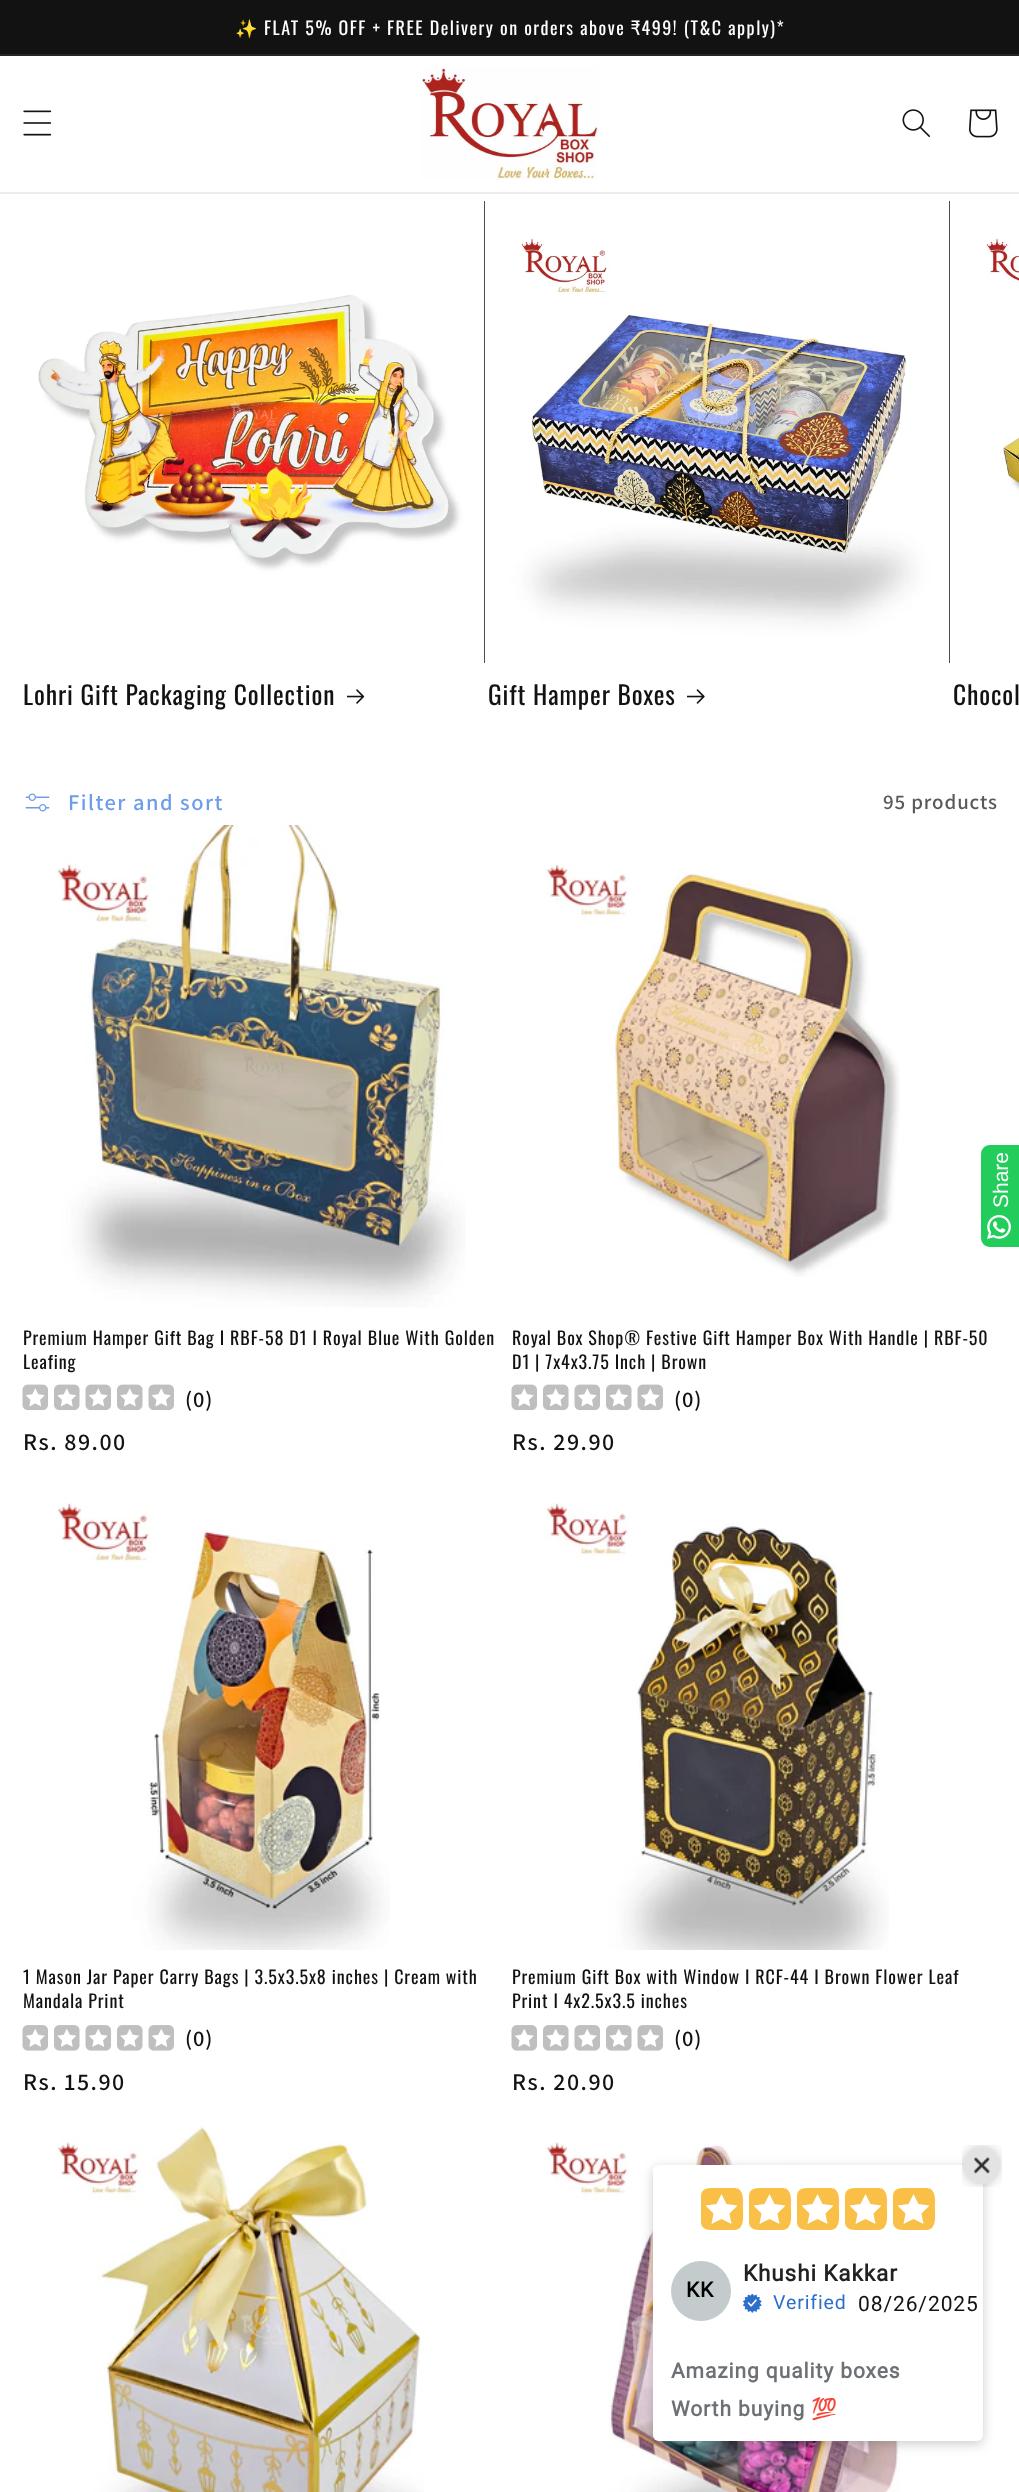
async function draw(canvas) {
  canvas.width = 1019;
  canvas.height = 2492;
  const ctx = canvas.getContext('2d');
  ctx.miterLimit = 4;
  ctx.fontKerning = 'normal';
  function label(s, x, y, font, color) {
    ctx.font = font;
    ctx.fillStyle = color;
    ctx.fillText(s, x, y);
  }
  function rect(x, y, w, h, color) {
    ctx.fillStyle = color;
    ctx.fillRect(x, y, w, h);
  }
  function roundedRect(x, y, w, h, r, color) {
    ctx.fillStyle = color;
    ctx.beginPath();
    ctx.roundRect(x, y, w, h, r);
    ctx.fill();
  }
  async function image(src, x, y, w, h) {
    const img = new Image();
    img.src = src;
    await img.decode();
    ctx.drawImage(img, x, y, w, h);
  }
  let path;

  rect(0, 0, 1019, 2492, '#fff');
  rect(0, 0, 1019, 54, '#121212');
  rect(0, 54, 1019, 2, '#252525');
  ctx.letterSpacing = '1.5px';
  label('✨', 235, 35, '18px Noto Color Emoji', '#fff');
  label('FLAT 5% OFF + FREE Delivery on orders above ₹499! (T&C apply)*', 264, 35, '18px Oswald', '#fff');
  rect(0, 192, 1019, 2, '#ececec');
  await image('assets/img1.png', 23, 110, 29, 26);
  await image('assets/img2.png', 420, 67, 179, 113);
  await image('assets/img3.png', 902, 109, 28, 28);
  await image('assets/img4.png', 969, 109, 29, 29);
  rect(484, 201, 1, 462, '#121212');
  await image('assets/img5.png', 23, 201, 462, 462);
  ctx.letterSpacing = '0.9px';
  label('Lohri Gift Packaging Collection', 23, 705, '25.5px Oswald', '#121212');
  await image('assets/img6.png', 347, 689, 18, 15);
  rect(949, 201, 1, 462, '#121212');
  await image('assets/img7.png', 488, 201, 462, 462);
  label('Gift Hamper Boxes', 488, 705, '25.5px Oswald', '#121212');
  await image('assets/img8.png', 687, 689, 18, 15);
  await image('assets/img9.png', 953, 201, 66, 462);
  label('Chocol', 953, 705, '25.5px Oswald', '#121212');
  await image('assets/img10.png', 25, 793, 25, 19);
  ctx.letterSpacing = '1.5px';
  label('Filter and sort', 68, 810, '600 22.5px Assistant', '#6d9cea');
  ctx.letterSpacing = '0.9px';
  label('95 products', 883, 809, '600 21px Assistant', '#595959');
  await image('assets/img11.png', 55, 825, 411, 483);
  label('Premium Hamper Gift Bag I RBF-58 D1 I Royal Blue With Golden', 23, 1345, '18px Oswald', '#121212');
  label('Leafing', 23, 1369, '18px Oswald', '#121212');
  await image('assets/img12.png', 22, 1384, 26, 27);
  await image('assets/img13.png', 25, 1388, 20, 19);
  await image('assets/img14.png', 54, 1384, 26, 27);
  await image('assets/img15.png', 57, 1388, 20, 19);
  await image('assets/img12.png', 85, 1384, 26, 27);
  await image('assets/img13.png', 88, 1388, 20, 19);
  await image('assets/img14.png', 117, 1384, 26, 27);
  await image('assets/img15.png', 120, 1388, 20, 19);
  await image('assets/img12.png', 148, 1384, 26, 27);
  await image('assets/img13.png', 151, 1388, 20, 19);
  label('(0)', 185, 1407, '600 22.5px Assistant', '#121212');
  ctx.letterSpacing = '1.5px';
  label('Rs. 89.00', 23, 1450, '600 24px Assistant', '#121212');
  await image('assets/img16.png', 545, 864, 355, 413);
  ctx.letterSpacing = '0.9px';
  label('Royal Box Shop® Festive Gift Hamper Box With Handle | RBF-50', 512, 1345, '18px Oswald', '#121212');
  label('D1 | 7x4x3.75 Inch | Brown', 512, 1369, '18px Oswald', '#121212');
  await image('assets/img12.png', 511, 1384, 26, 27);
  await image('assets/img13.png', 514, 1388, 20, 19);
  await image('assets/img14.png', 543, 1384, 26, 27);
  await image('assets/img15.png', 546, 1388, 20, 19);
  await image('assets/img12.png', 574, 1384, 26, 27);
  await image('assets/img13.png', 577, 1388, 20, 19);
  await image('assets/img14.png', 606, 1384, 26, 27);
  await image('assets/img15.png', 609, 1388, 20, 19);
  await image('assets/img12.png', 637, 1384, 26, 27);
  await image('assets/img13.png', 640, 1388, 20, 19);
  label('(0)', 674, 1407, '600 22.5px Assistant', '#121212');
  ctx.letterSpacing = '1.5px';
  label('Rs. 29.90', 512, 1450, '600 24px Assistant', '#121212');
  await image('assets/img17.png', 55, 1503, 335, 447);
  ctx.letterSpacing = '0.9px';
  label('1 Mason Jar Paper Carry Bags | 3.5x3.5x8 inches | Cream with', 23, 1984, '18px Oswald', '#121212');
  label('Mandala Print', 23, 2008, '18px Oswald', '#121212');
  await image('assets/img18.png', 22, 2025, 26, 26);
  await image('assets/img19.png', 25, 2029, 20, 18);
  await image('assets/img20.png', 54, 2025, 26, 26);
  await image('assets/img21.png', 57, 2029, 20, 18);
  await image('assets/img18.png', 85, 2025, 26, 26);
  await image('assets/img19.png', 88, 2029, 20, 18);
  await image('assets/img20.png', 117, 2025, 26, 26);
  await image('assets/img21.png', 120, 2029, 20, 18);
  await image('assets/img18.png', 148, 2025, 26, 26);
  await image('assets/img19.png', 151, 2029, 20, 18);
  label('(0)', 185, 2046, '600 22.5px Assistant', '#121212');
  ctx.letterSpacing = '1.5px';
  label('Rs. 15.90', 23, 2090, '600 24px Assistant', '#121212');
  await image('assets/img22.png', 545, 1503, 344, 447);
  ctx.letterSpacing = '0.9px';
  label('Premium Gift Box with Window I RCF-44 I Brown Flower Leaf', 512, 1984, '18px Oswald', '#121212');
  label('Print I 4x2.5x3.5 inches', 512, 2008, '18px Oswald', '#121212');
  await image('assets/img18.png', 511, 2025, 26, 26);
  await image('assets/img19.png', 514, 2029, 20, 18);
  await image('assets/img20.png', 543, 2025, 26, 26);
  await image('assets/img21.png', 546, 2029, 20, 18);
  await image('assets/img18.png', 574, 2025, 26, 26);
  await image('assets/img19.png', 577, 2029, 20, 18);
  await image('assets/img20.png', 606, 2025, 26, 26);
  await image('assets/img21.png', 609, 2029, 20, 18);
  await image('assets/img18.png', 637, 2025, 26, 26);
  await image('assets/img19.png', 640, 2029, 20, 18);
  label('(0)', 674, 2046, '600 22.5px Assistant', '#121212');
  ctx.letterSpacing = '1.5px';
  label('Rs. 20.90', 512, 2090, '600 24px Assistant', '#121212');
  await image('assets/img23.png', 55, 2125, 369, 367);
  await image('assets/img24.png', 545, 2142, 355, 350);
  ctx.fillStyle = '#22cd5b';
  path = new Path2D('M990 1145H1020V1247H990C985 1247 981 1243 981 1238V1154C981 1149 985 1145 990 1145Z');
  ctx.fill(path);
  ctx.letterSpacing = '0px';
  ctx.font = '21px Liberation Sans';
  ctx.fillStyle = '#fff';
  ctx.save();
  ctx.translate(1008, 1208);
  ctx.rotate(-90 * Math.PI / 180);
  ctx.fillText('Share', 0, 0);
  ctx.restore();
  await image('assets/img25.png', 987, 1215, 24, 24);
  ctx.fillStyle = '#00000033';
  ctx.filter = 'blur(6px)';
  ctx.beginPath();
  ctx.roundRect(653, 2168, 330, 276, 6);
  ctx.fill();
  ctx.filter = 'none';
  roundedRect(653, 2165, 330, 276, 6, '#fff');
  await image('assets/img26.png', 962, 2145, 40, 42);
  ctx.fillStyle = '#fabf46';
  path = new Path2D('M734 2230H717C711 2230 702 2231 701 2223V2195C702 2187 711 2188 717 2188H734C745 2188 743 2202 743 2209C743 2216 745 2230 734 2230Z');
  ctx.fill(path);
  ctx.fillStyle = '#fff';
  path = new Path2D('M721.5 2194L726.5 2204L737.5 2205.5L729.5 2213.5L731.5 2224L721.5 2219L711.5 2224L713.5 2213.5L705.5 2205.5L716.5 2204Z');
  ctx.fill(path);
  ctx.fillStyle = '#fabf46';
  path = new Path2D('M782 2230H765C759 2230 750 2231 749 2223V2195C750 2187 759 2188 765 2188H782C793 2188 791 2202 791 2209C791 2216 793 2230 782 2230Z');
  ctx.fill(path);
  ctx.fillStyle = '#fff';
  path = new Path2D('M769.5 2194L774.5 2204L785.5 2205.5L777.5 2213.5L779.5 2224L769.5 2219L759.5 2224L761.5 2213.5L753.5 2205.5L764.5 2204Z');
  ctx.fill(path);
  ctx.fillStyle = '#fabf46';
  path = new Path2D('M830 2230H813C807 2230 798 2231 797 2223V2195C798 2187 807 2188 813 2188H830C841 2188 839 2202 839 2209C839 2216 841 2230 830 2230Z');
  ctx.fill(path);
  ctx.fillStyle = '#fff';
  path = new Path2D('M817.5 2194L822.5 2204L833.5 2205.5L825.5 2213.5L827.5 2224L817.5 2219L807.5 2224L809.5 2213.5L801.5 2205.5L812.5 2204Z');
  ctx.fill(path);
  ctx.fillStyle = '#fabf46';
  path = new Path2D('M878 2230H861C855 2230 846 2231 845 2223V2195C846 2187 855 2188 861 2188H878C889 2188 887 2202 887 2209C887 2216 889 2230 878 2230Z');
  ctx.fill(path);
  ctx.fillStyle = '#fff';
  path = new Path2D('M865.5 2194L870.5 2204L881.5 2205.5L873.5 2213.5L875.5 2224L865.5 2219L855.5 2224L857.5 2213.5L849.5 2205.5L860.5 2204Z');
  ctx.fill(path);
  ctx.fillStyle = '#fabf46';
  path = new Path2D('M926 2230H909C903 2230 894 2231 893 2223V2195C894 2187 903 2188 909 2188H926C937 2188 935 2202 935 2209C935 2216 937 2230 926 2230Z');
  ctx.fill(path);
  ctx.fillStyle = '#fff';
  path = new Path2D('M913.5 2194L918.5 2204L929.5 2205.5L921.5 2213.5L923.5 2224L913.5 2219L903.5 2224L905.5 2213.5L897.5 2205.5L908.5 2204Z');
  ctx.fill(path);
  ctx.fillStyle = '#c3cbcd';
  ctx.beginPath();
  ctx.arc(701, 2291, 30, 0, 2 * Math.PI);
  ctx.fill();
  ctx.letterSpacing = '0.9px';
  label('KK', 686, 2297, 'bold 21px Roboto', '#000');
  label('Khushi Kakkar', 743, 2281, 'bold 22.5px Roboto', '#202223');
  await image('assets/img27.png', 743, 2294, 19, 19);
  label('Verified', 773, 2309, '19.5px Roboto', '#2c6ecb');
  label('08/26/2025', 858, 2311, '21px Roboto', '#121212');
  label('Amazing quality boxes', 671, 2378, 'bold 21px Roboto', '#6d7175');
  label('Worth buying', 671, 2416, 'bold 21px Roboto', '#6d7175');
  label('💯', 811, 2416, 'bold 21px Noto Color Emoji', '#6d7175');
}

draw(document.querySelector('canvas'));
